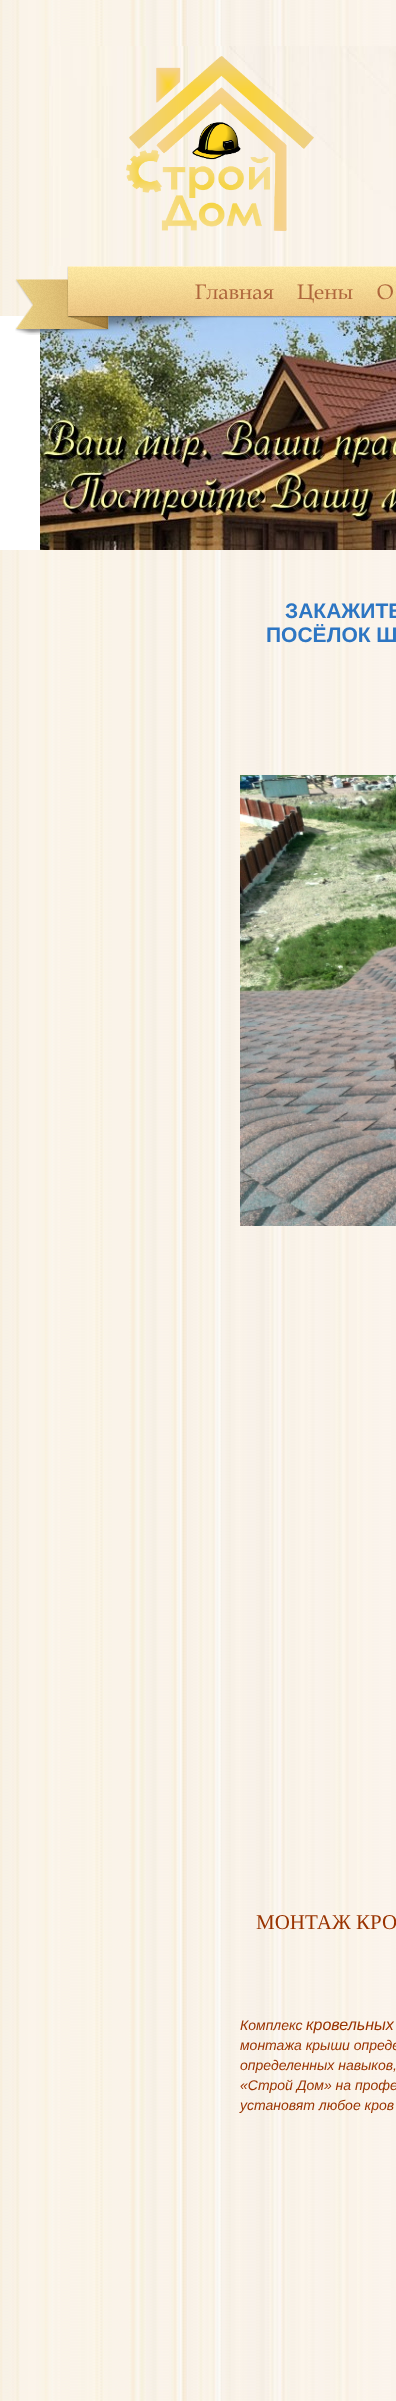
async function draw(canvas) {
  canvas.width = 396;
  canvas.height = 2401;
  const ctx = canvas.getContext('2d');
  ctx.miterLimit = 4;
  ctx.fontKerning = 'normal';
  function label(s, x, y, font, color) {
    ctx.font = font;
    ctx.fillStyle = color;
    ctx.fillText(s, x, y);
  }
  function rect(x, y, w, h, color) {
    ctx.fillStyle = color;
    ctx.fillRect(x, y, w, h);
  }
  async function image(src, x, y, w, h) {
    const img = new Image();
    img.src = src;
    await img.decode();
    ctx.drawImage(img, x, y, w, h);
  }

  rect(0, 0, 396, 2401, '#fff');
  await image('assets/img1.png', 0, 0, 396, 2401);
  await image('assets/img2.png', 48, 46, 348, 220);
  await image('assets/img3.png', 126, 56, 188, 175);
  rect(0, 316, 40, 234, '#fff');
  await image('assets/img5.png', 40, 316, 356, 234);
  await image('assets/img4.png', 15, 266, 381, 69);
  label('Главная', 195, 299, '21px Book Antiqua', '#ae663c');
  label('Цены', 297, 299, '21px Book Antiqua', '#ae663c');
  label('О', 377, 299, '21px Book Antiqua', '#ae663c');
  label('ЗАКАЖИТЕ', 285, 618, 'bold 21px Liberation Sans', '#2d76c3');
  label('ПОСЁЛОК Ш', 266, 642, 'bold 21px Liberation Sans', '#2d76c3');
  await image('assets/img6.png', 240, 775, 156, 451);
  label('МОНТАЖ КРО', 256, 1929, '21px Liberation Serif', '#930');
  label('Комплекс', 240, 2030, 'italic 14px Liberation Sans', '#930');
  label('кровельных', 306, 2030, 'italic 16px Liberation Sans', '#930');
  label('монтажа крыши опреде', 240, 2050, 'italic 14px Liberation Sans', '#930');
  label('определенных навыков,', 240, 2070, 'italic 14px Liberation Sans', '#930');
  label('«Строй Дом» на профе', 240, 2090, 'italic 14px Liberation Sans', '#930');
  label('установят любое кров', 240, 2110, 'italic 14px Liberation Sans', '#930');
}

draw(document.querySelector('canvas'));
